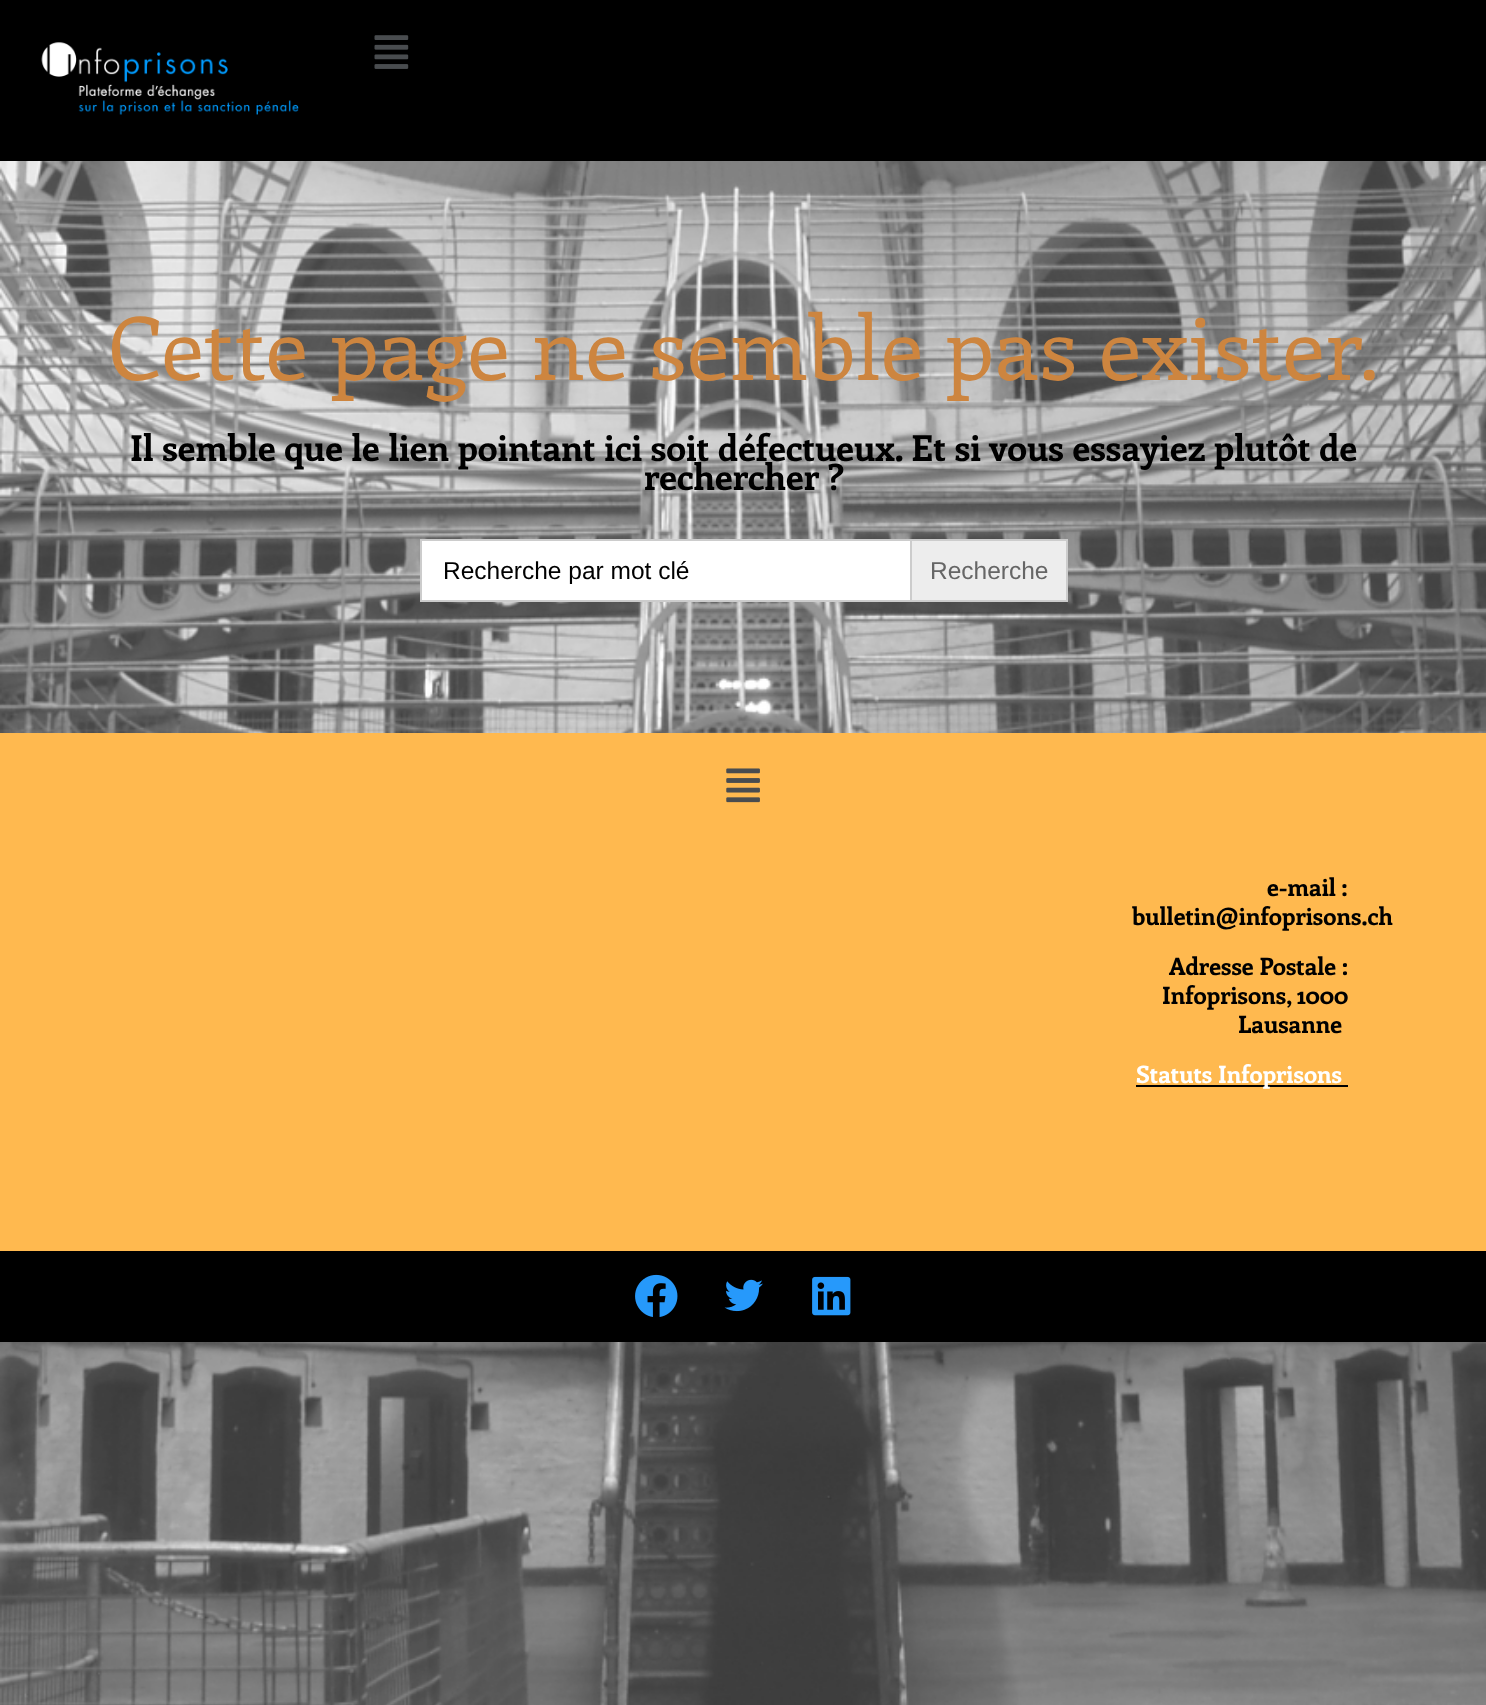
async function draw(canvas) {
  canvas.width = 1486;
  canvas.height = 1705;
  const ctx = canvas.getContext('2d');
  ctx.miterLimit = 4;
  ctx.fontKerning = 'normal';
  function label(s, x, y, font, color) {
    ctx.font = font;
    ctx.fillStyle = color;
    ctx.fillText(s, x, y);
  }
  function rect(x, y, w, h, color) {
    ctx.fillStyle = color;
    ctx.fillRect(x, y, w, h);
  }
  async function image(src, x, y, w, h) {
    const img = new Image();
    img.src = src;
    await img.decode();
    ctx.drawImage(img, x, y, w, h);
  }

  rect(0, 0, 1486, 1705, '#fff');
  await image('assets/img1.png', 0, 161, 1486, 1544);
  rect(0, 0, 1486, 161, '#000');
  await image('assets/img2.png', 41, 42, 258, 73);
  await image('assets/img3.png', 374, 35, 35, 34);
  label('Cette page ne semble pas exister.', 108, 380, '87.5px Enriqueta', '#cd853f');
  label('Il semble que le lien pointant ici soit défectueux. Et si vous essayiez plutôt de', 130, 461, 'bold 35.9px Enriqueta', '#000');
  label('rechercher ?', 644, 490, 'bold 35.9px Enriqueta', '#000');
  rect(422, 541, 488, 59, '#fff');
  ctx.strokeStyle = '#ccc';
  ctx.lineWidth = 2;
  ctx.strokeRect(421, 540, 646, 61);
  label('Recherche par mot clé', 443, 579, '24.5px Liberation Sans', '#000');
  ctx.fillStyle = '#ededed';
  ctx.beginPath();
  ctx.rect(911, 540, 156, 61);
  ctx.fill();
  ctx.stroke();
  label('Recherche', 930, 579, '24.5px Liberation Sans', '#666');
  rect(0, 733, 1486, 518, '#ffb94f');
  await image('assets/img4.png', 726, 768, 34, 35);
  label('e-mail :', 1267, 896, 'bold 24px Enriqueta', '#000');
  label('bulletin@infoprisons.ch', 1132, 925, 'bold 24px Enriqueta', '#000');
  label('Adresse Postale :', 1169, 975, 'bold 24px Enriqueta', '#000');
  label('Infoprisons, 1000', 1162, 1004, 'bold 24px Enriqueta', '#000');
  label('Lausanne', 1238, 1033, 'bold 24px Enriqueta', '#000');
  rect(1136, 1085, 212, 2, '#000');
  label('Statuts Infoprisons', 1136, 1083, 'bold 24px Enriqueta', '#fff');
  rect(0, 1251, 1486, 91, '#000');
  await image('assets/img5.png', 635, 1274, 43, 43);
  await image('assets/img6.png', 724, 1279, 39, 33);
  await image('assets/img7.png', 812, 1276, 39, 40);
}

draw(document.querySelector('canvas'));
